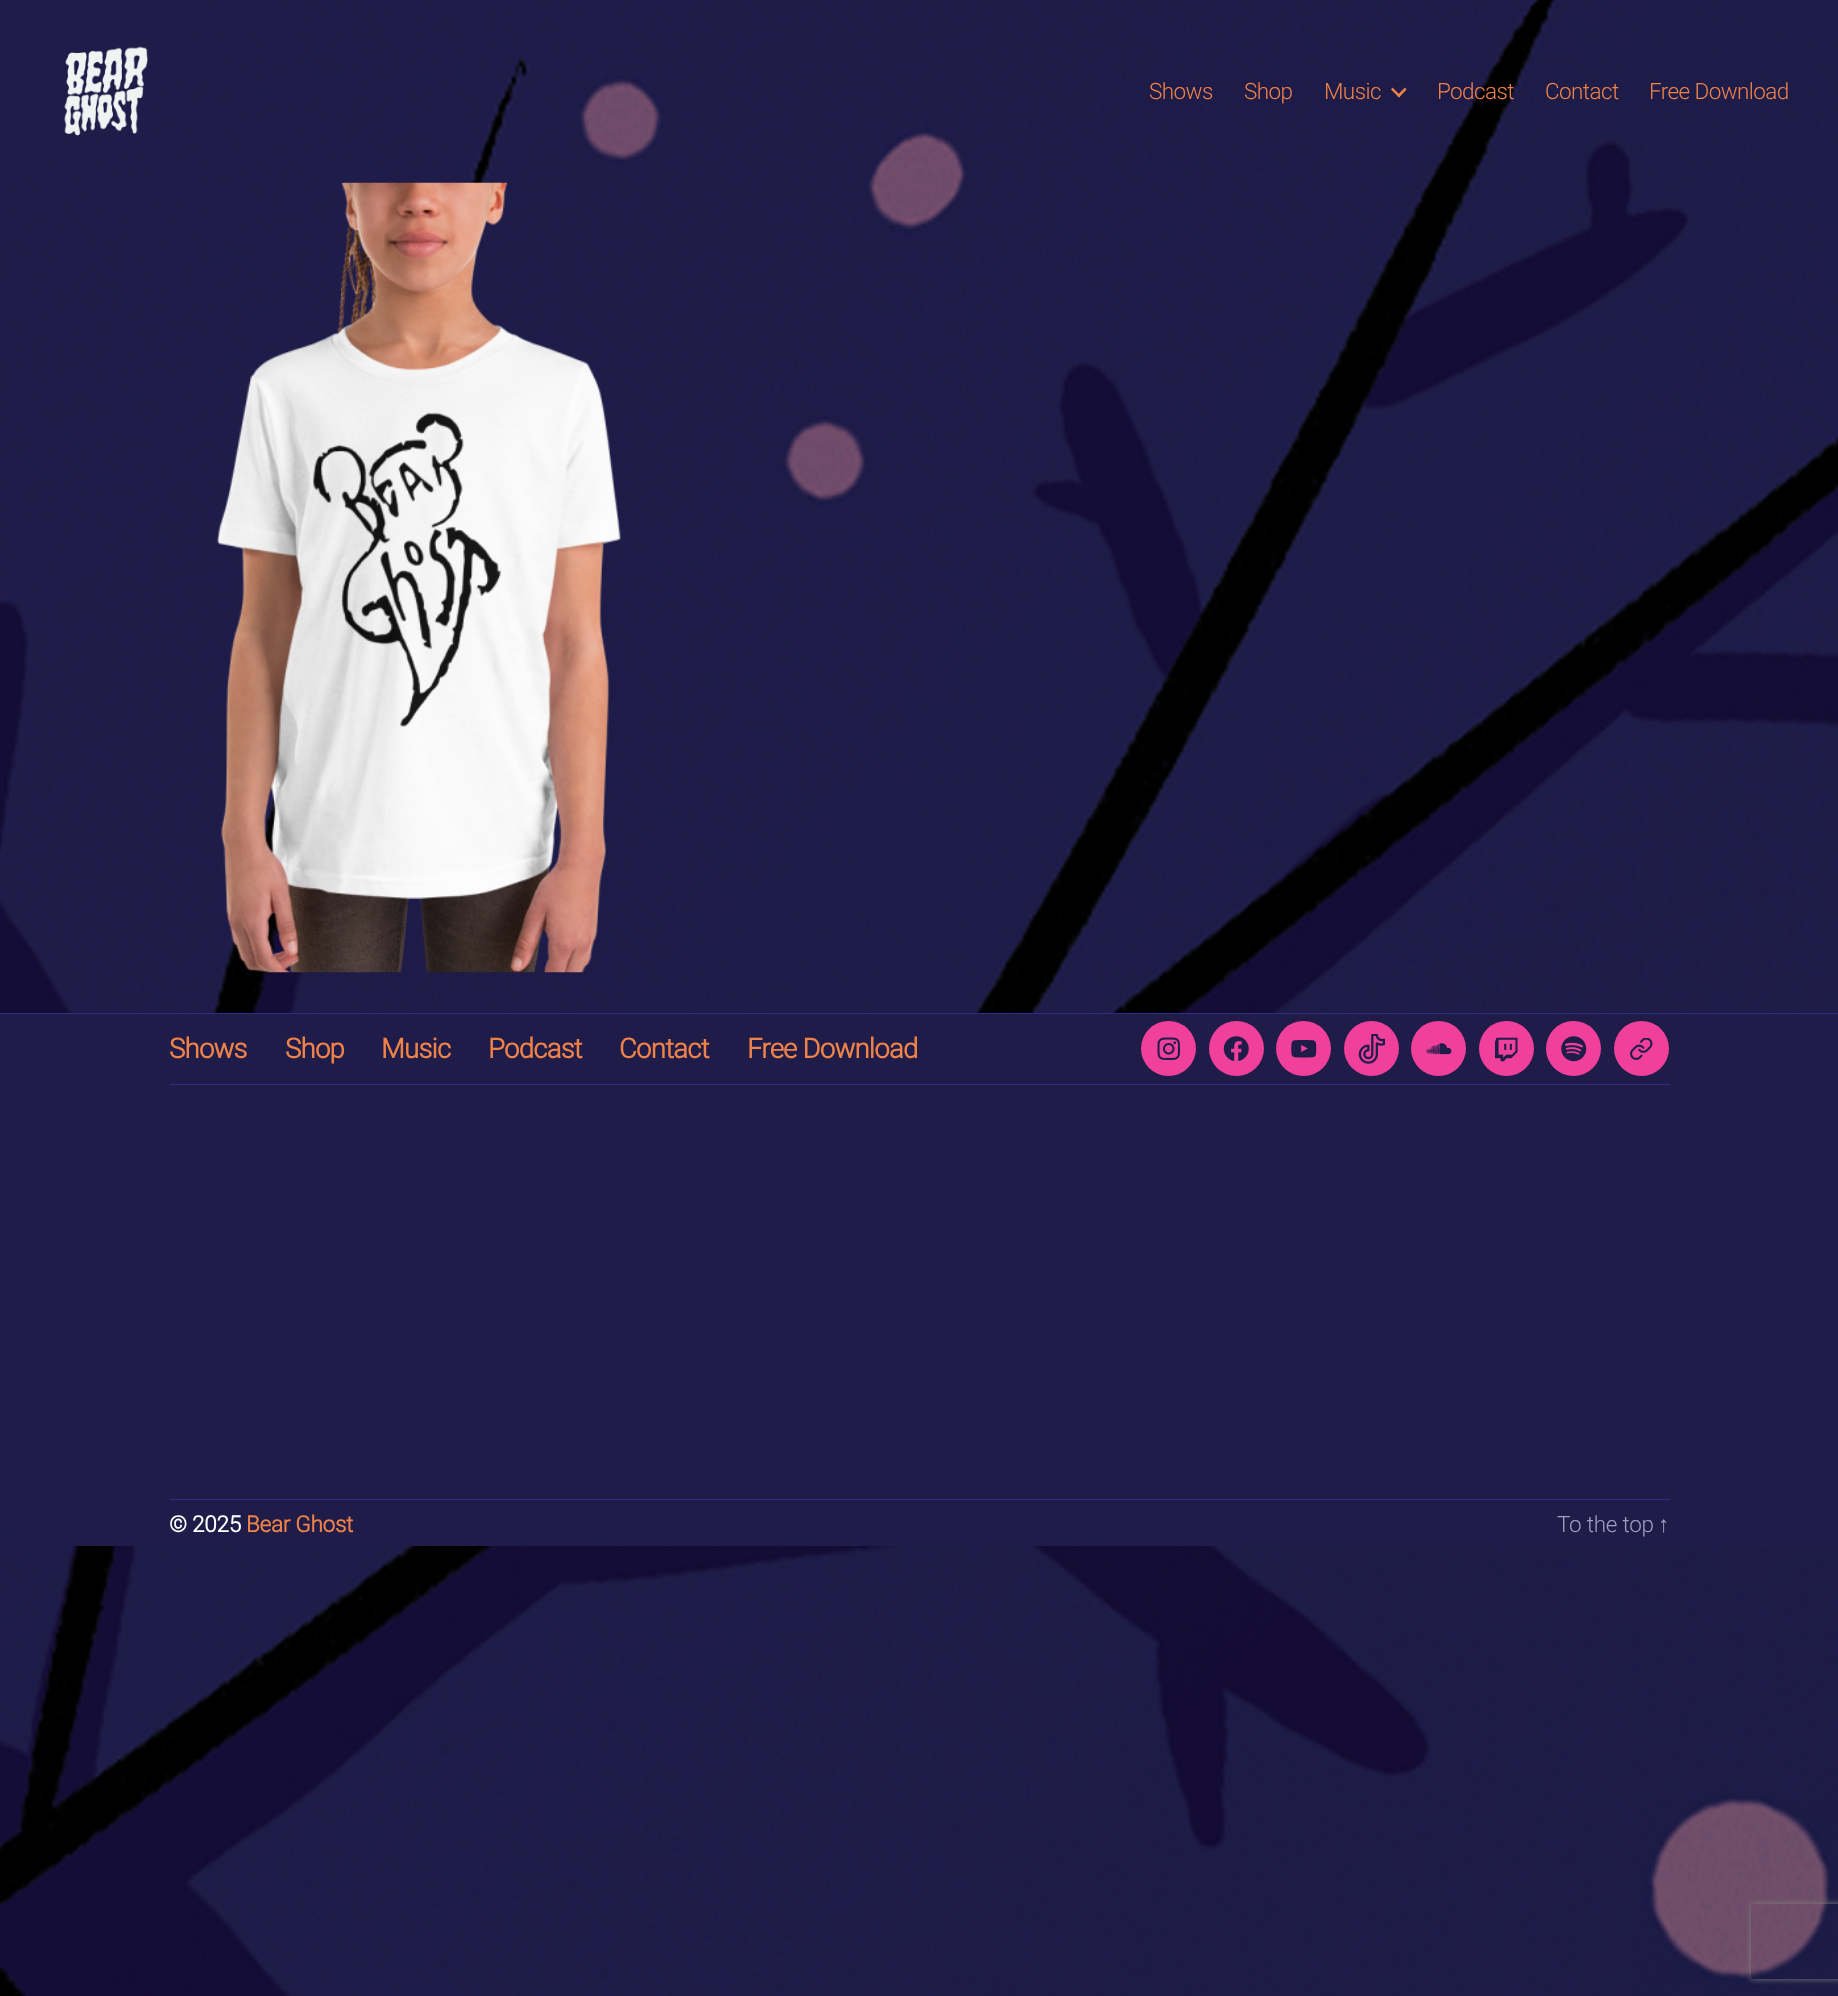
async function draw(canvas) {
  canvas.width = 1838;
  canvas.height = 1996;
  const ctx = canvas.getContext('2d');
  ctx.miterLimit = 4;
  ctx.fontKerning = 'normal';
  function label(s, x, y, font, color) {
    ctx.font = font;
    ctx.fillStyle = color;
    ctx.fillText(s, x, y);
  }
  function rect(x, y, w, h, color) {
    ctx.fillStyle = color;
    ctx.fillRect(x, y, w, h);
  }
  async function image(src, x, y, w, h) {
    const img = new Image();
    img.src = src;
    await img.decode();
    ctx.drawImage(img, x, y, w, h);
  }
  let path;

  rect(0, 0, 1838, 1996, '#fff');
  await image('assets/img1.png', 0, 0, 1838, 1996);
  await image('assets/img2.png', 64, 46, 84, 90);
  ctx.letterSpacing = '-0.6px';
  label('Shows', 1149, 99, '300 22.5px Roboto', '#ef8249');
  label('Shop', 1244, 99, '300 22.5px Roboto', '#ef8249');
  label('Music', 1324, 99, '300 22.5px Roboto', '#ef8249');
  path = new Path2D('M1391 89.5L1392.5 87.5L1400.5 95.5L1399 97.5Z');
  ctx.fill(path);
  path = new Path2D('M1397 95.5L1405 87.5L1406.5 89.5L1399 97.5Z');
  ctx.fill(path);
  label('Podcast', 1437, 99, '300 22.5px Roboto', '#ef8249');
  label('Contact', 1545, 99, '300 22.5px Roboto', '#ef8249');
  label('Free Download', 1649, 99, '300 22.5px Roboto', '#ef8249');
  await image('assets/img3.png', 217, 182, 404, 791);
  rect(0, 1014, 1838, 486, '#1f1c49');
  rect(0, 1013, 1838, 1, '#342b86');
  rect(170, 1084, 1500, 1, '#342b86');
  ctx.letterSpacing = '-0.75px';
  label('Shows', 169, 1058, 'bold 27.5px Roboto', '#ef8249');
  label('Shop', 285, 1058, 'bold 27.5px Roboto', '#ef8249');
  label('Music', 381, 1058, 'bold 27.5px Roboto', '#ef8249');
  label('Podcast', 488, 1058, 'bold 27.5px Roboto', '#ef8249');
  label('Contact', 619, 1058, 'bold 27.5px Roboto', '#ef8249');
  label('Free Download', 747, 1058, 'bold 27.5px Roboto', '#ef8249');
  ctx.fillStyle = '#f1409b';
  ctx.beginPath();
  ctx.arc(1168.5, 1048.5, 27.5, 0, 2 * Math.PI);
  ctx.fill();
  await image('assets/img4.png', 1157, 1037, 23, 23);
  ctx.beginPath();
  ctx.arc(1236.5, 1048.5, 27.5, 0, 2 * Math.PI);
  ctx.fill();
  await image('assets/img5.png', 1223, 1036, 26, 26);
  ctx.beginPath();
  ctx.arc(1303.5, 1048.5, 27.5, 0, 2 * Math.PI);
  ctx.fill();
  await image('assets/img6.png', 1291, 1039, 26, 19);
  ctx.beginPath();
  ctx.arc(1371.5, 1048.5, 27.5, 0, 2 * Math.PI);
  ctx.fill();
  await image('assets/img7.png', 1358, 1034, 27, 30);
  ctx.beginPath();
  ctx.arc(1438.5, 1048.5, 27.5, 0, 2 * Math.PI);
  ctx.fill();
  await image('assets/img8.png', 1426, 1043, 26, 12);
  ctx.beginPath();
  ctx.arc(1506.5, 1048.5, 27.5, 0, 2 * Math.PI);
  ctx.fill();
  await image('assets/img9.png', 1495, 1037, 23, 25);
  ctx.beginPath();
  ctx.arc(1573.5, 1048.5, 27.5, 0, 2 * Math.PI);
  ctx.fill();
  await image('assets/img10.png', 1561, 1036, 26, 26);
  ctx.beginPath();
  ctx.arc(1641.5, 1048.5, 27.5, 0, 2 * Math.PI);
  ctx.fill();
  await image('assets/img11.png', 1630, 1038, 23, 22);
  rect(170, 1499, 1500, 1, '#342b86');
  rect(23, 1500, 1815, 46, '#1f1c49');
  ctx.letterSpacing = '-0.25px';
  label('© 2025', 169, 1532, 'bold 22.5px Roboto', '#fff');
  label('Bear Ghost', 246, 1532, 'bold 22.5px Roboto', '#ef8249');
  label('To the top', 1557, 1532, '300 22.5px Roboto', '#a19ec1');
  label('↑', 1658, 1532, '22.5px Liberation Sans', '#a19ec1');
  ctx.save();
  path = new Path2D('M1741 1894H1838V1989H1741ZM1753.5 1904H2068.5C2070 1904 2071 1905 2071 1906.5V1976.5C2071 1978 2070 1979 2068.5 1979H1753.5C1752 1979 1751 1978 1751 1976.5V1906.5C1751 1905 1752 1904 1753.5 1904Z');
  ctx.clip(path, 'evenodd');
  ctx.fillStyle = '#808080';
  ctx.filter = 'blur(3px)';
  ctx.beginPath();
  ctx.roundRect(1751, 1904, 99, 75, 2.5);
  ctx.fill();
  ctx.filter = 'none';
  ctx.restore();
}

draw(document.querySelector('canvas'));
